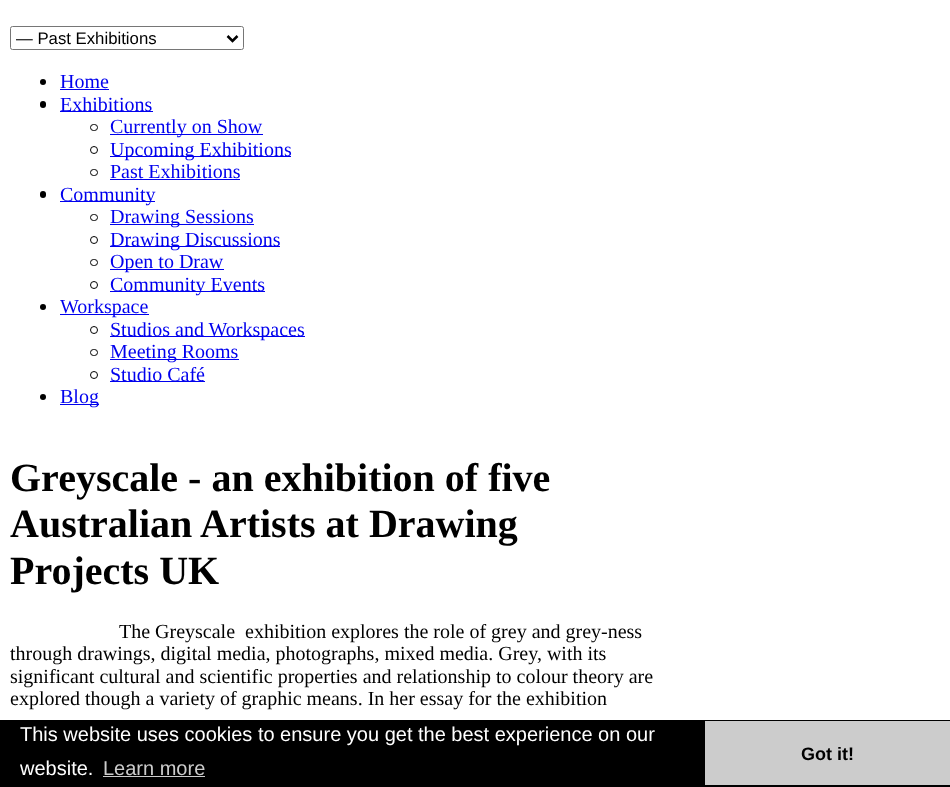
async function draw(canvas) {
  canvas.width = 950;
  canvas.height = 787;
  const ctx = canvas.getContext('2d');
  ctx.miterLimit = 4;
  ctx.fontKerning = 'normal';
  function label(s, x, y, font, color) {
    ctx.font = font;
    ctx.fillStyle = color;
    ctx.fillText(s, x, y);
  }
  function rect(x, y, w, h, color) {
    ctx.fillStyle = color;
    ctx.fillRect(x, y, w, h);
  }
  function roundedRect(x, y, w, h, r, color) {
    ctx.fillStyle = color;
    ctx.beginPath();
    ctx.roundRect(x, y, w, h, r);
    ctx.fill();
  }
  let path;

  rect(0, 0, 950, 787, '#fff');
  ctx.beginPath();
  ctx.roundRect(10.5, 26.5, 233, 23, 2);
  ctx.strokeStyle = '#767676';
  ctx.stroke();
  path = new Path2D('M227.5 36L232.5 41L237.5 36');
  ctx.strokeStyle = '#000';
  ctx.lineWidth = 2.5;
  ctx.stroke(path);
  label('— Past Exhibitions', 16, 44, '16.75px Liberation Sans', '#000');
  ctx.beginPath();
  ctx.arc(43, 82, 3, 0, 2 * Math.PI);
  ctx.fill();
  label('Home', 60, 88, '20px Liberation Serif', '#00e');
  rect(60, 89, 49, 1, '#00e');
  roundedRect(40, 101, 6, 7, 3, '#000');
  rect(60, 111, 93, 1, '#00e');
  label('Exhibitions', 60, 111, '20px Liberation Serif', '#00e');
  ctx.beginPath();
  ctx.roundRect(90.5, 124.5, 7, 6, 3);
  ctx.lineWidth = 1;
  ctx.stroke();
  rect(110, 134, 153, 1, '#00e');
  label('Currently on Show', 110, 133, '20px Liberation Serif', '#00e');
  ctx.beginPath();
  ctx.arc(94, 150, 3.5, 0, 2 * Math.PI);
  ctx.stroke();
  rect(110, 156, 181, 1, '#00e');
  label('Upcoming Exhibitions', 110, 156, '20px Liberation Serif', '#00e');
  ctx.beginPath();
  ctx.roundRect(90.5, 169.5, 7, 6, 3);
  ctx.stroke();
  label('Past Exhibitions', 110, 178, '20px Liberation Serif', '#00e');
  rect(110, 179, 130, 1, '#00e');
  roundedRect(40, 191, 6, 7, 3, '#000');
  rect(60, 201, 95, 1, '#00e');
  label('Community', 60, 201, '20px Liberation Serif', '#00e');
  ctx.beginPath();
  ctx.roundRect(90.5, 214.5, 7, 6, 3);
  ctx.stroke();
  rect(110, 224, 144, 1, '#00e');
  label('Drawing Sessions', 110, 223, '20px Liberation Serif', '#00e');
  ctx.beginPath();
  ctx.arc(94, 240, 3.5, 0, 2 * Math.PI);
  ctx.stroke();
  rect(110, 246, 170, 1, '#00e');
  label('Drawing Discussions', 110, 246, '20px Liberation Serif', '#00e');
  ctx.beginPath();
  ctx.roundRect(90.5, 259.5, 7, 6, 3);
  ctx.stroke();
  rect(110, 269, 114, 1, '#00e');
  label('Open to Draw', 110, 268, '20px Liberation Serif', '#00e');
  ctx.beginPath();
  ctx.arc(94, 285, 3.5, 0, 2 * Math.PI);
  ctx.stroke();
  rect(110, 291, 155, 1, '#00e');
  label('Community Events', 110, 291, '20px Liberation Serif', '#00e');
  ctx.fillStyle = '#000';
  ctx.beginPath();
  ctx.arc(43, 307, 3, 0, 2 * Math.PI);
  ctx.fill();
  rect(60, 314, 89, 1, '#00e');
  label('Workspace', 60, 313, '20px Liberation Serif', '#00e');
  ctx.beginPath();
  ctx.arc(94, 330, 3.5, 0, 2 * Math.PI);
  ctx.stroke();
  rect(110, 336, 195, 1, '#00e');
  label('Studios and Workspaces', 110, 336, '20px Liberation Serif', '#00e');
  ctx.beginPath();
  ctx.roundRect(90.5, 349.5, 7, 6, 3);
  ctx.stroke();
  rect(110, 359, 129, 1, '#00e');
  label('Meeting Rooms', 110, 358, '20px Liberation Serif', '#00e');
  ctx.beginPath();
  ctx.arc(94, 375, 3.5, 0, 2 * Math.PI);
  ctx.stroke();
  rect(110, 381, 95, 1, '#00e');
  label('Studio Café', 110, 381, '20px Liberation Serif', '#00e');
  ctx.fillStyle = '#000';
  ctx.beginPath();
  ctx.arc(43, 397, 3, 0, 2 * Math.PI);
  ctx.fill();
  rect(60, 404, 39, 1, '#00e');
  label('Blog', 60, 403, '20px Liberation Serif', '#00e');
  label('Greyscale - an exhibition of five', 10, 491, 'bold 40px Liberation Serif', '#000');
  label('Australian Artists at Drawing', 10, 537, 'bold 40px Liberation Serif', '#000');
  label('Projects UK', 10, 584, 'bold 40px Liberation Serif', '#000');
  label('The Greyscale  exhibition explores the role of grey and grey-ness', 119, 638, '20px Liberation Serif', '#000');
  label('through drawings, digital media, photographs, mixed media. Grey, with its', 10, 660, '20px Liberation Serif', '#000');
  label('significant cultural and scientific properties and relationship to colour theory are', 10, 683, '20px Liberation Serif', '#000');
  label('explored though a variety of graphic means. In her essay for the exhibition', 10, 705, '20px Liberation Serif', '#000');
  rect(0, 720, 950, 67, '#000');
  label('This website uses cookies to ensure you get the best experience on our', 20, 741, '20px Liberation Sans', '#fff');
  label('website.', 20, 775, '20px Liberation Sans', '#fff');
  label('Learn more', 103, 775, '20px Liberation Sans', '#ccc');
  rect(103, 776, 102, 1, '#ccc');
  rect(705, 721, 245, 64, '#ccc');
  label('Got it!', 801, 760, 'bold 18px Liberation Sans', '#000');
}

draw(document.querySelector('canvas'));
